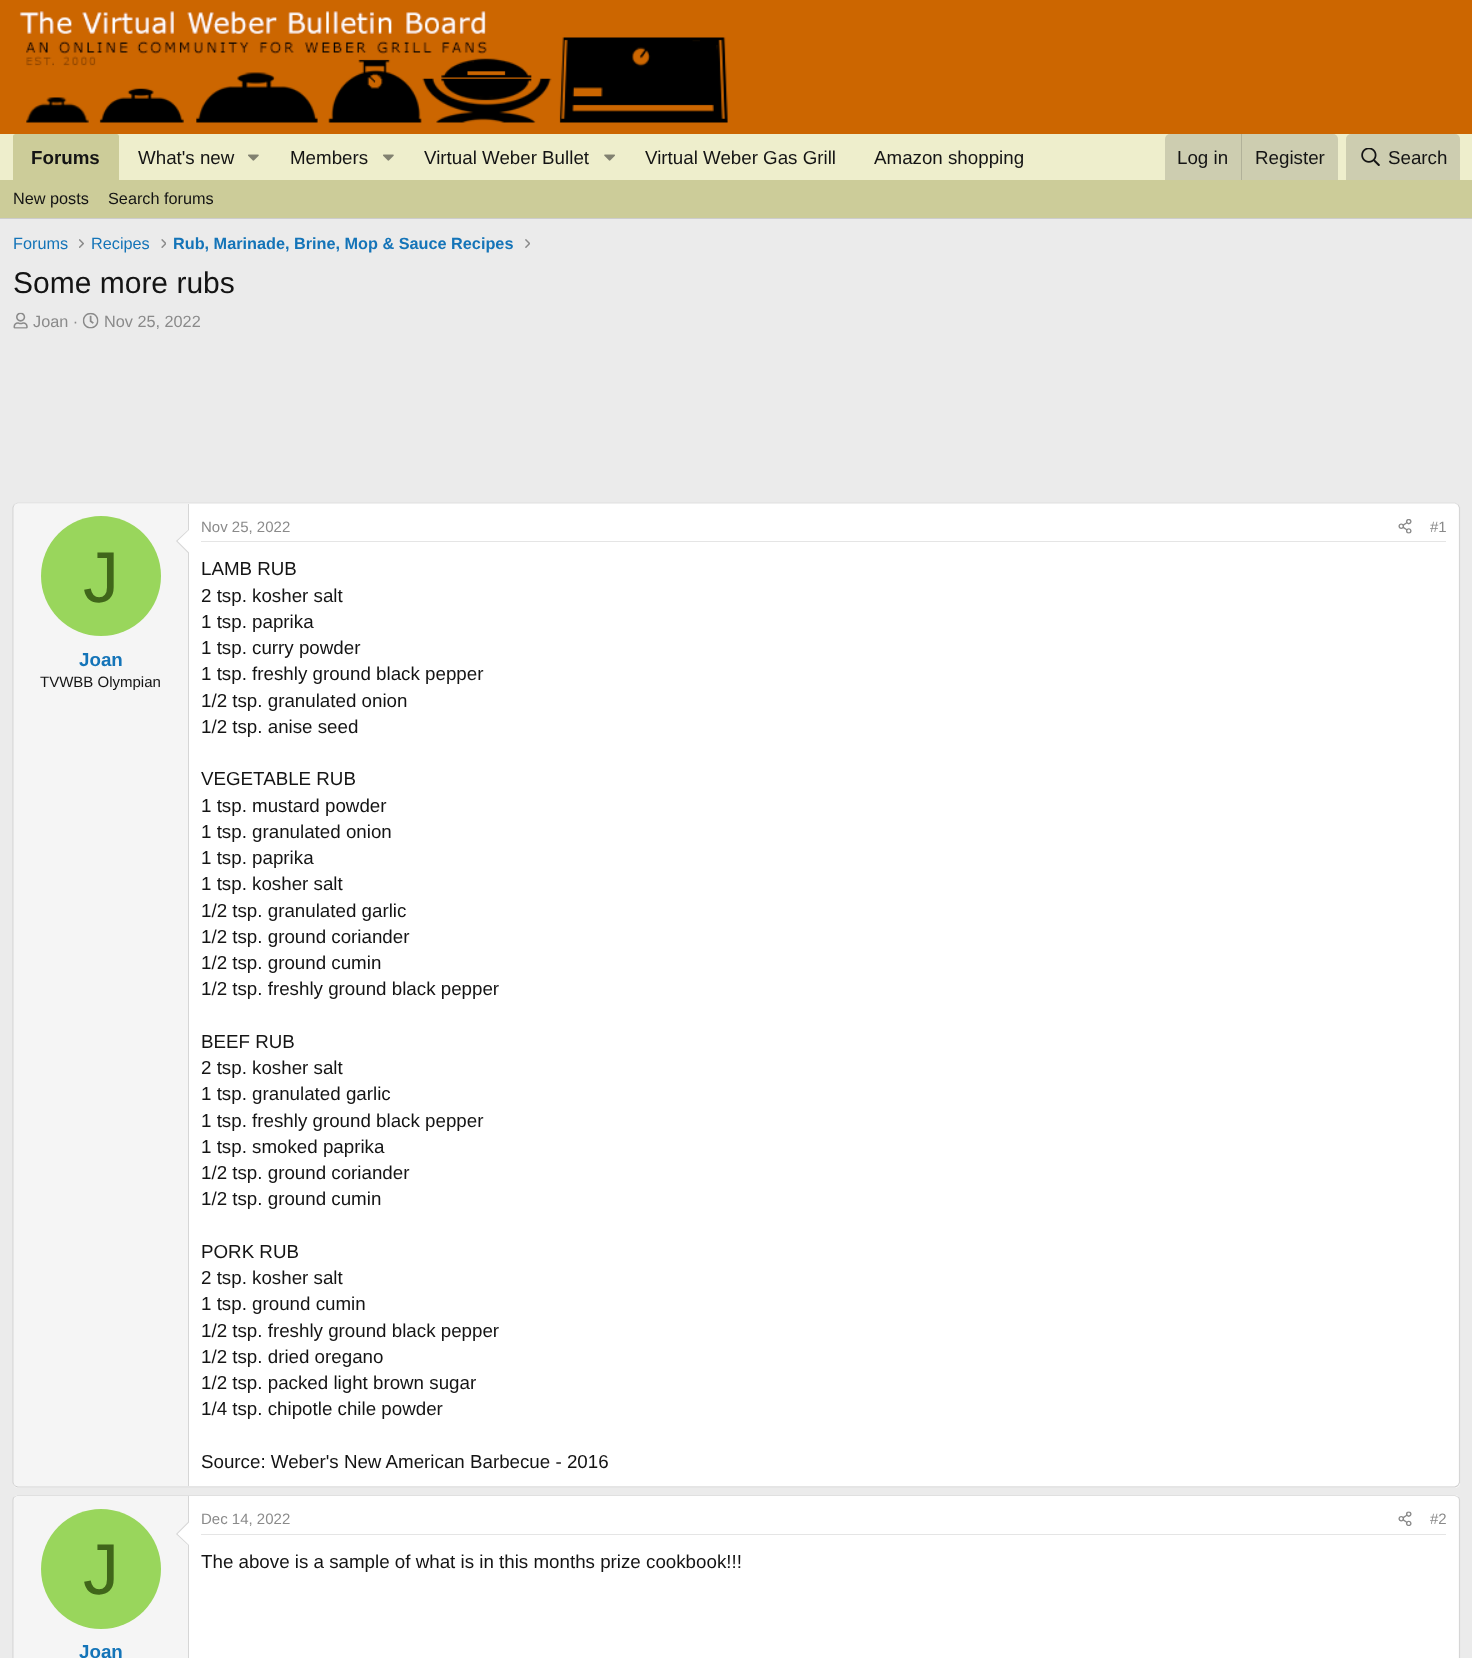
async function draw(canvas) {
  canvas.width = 1472;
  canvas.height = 1658;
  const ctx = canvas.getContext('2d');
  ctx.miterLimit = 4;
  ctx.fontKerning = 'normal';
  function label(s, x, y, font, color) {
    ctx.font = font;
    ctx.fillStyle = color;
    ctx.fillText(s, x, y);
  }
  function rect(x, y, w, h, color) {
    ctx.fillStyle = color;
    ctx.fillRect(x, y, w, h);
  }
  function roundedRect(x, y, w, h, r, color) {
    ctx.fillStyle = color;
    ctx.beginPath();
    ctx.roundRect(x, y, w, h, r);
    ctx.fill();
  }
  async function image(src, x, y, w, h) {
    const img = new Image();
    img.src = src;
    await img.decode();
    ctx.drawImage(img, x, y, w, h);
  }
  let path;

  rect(0, 0, 1472, 1658, '#ebebeb');
  rect(0, 0, 1472, 134, '#c60');
  await image('assets/img1.png', 19, 11, 709, 112);
  rect(0, 134, 1472, 46, '#eec');
  ctx.fillStyle = '#cc9';
  ctx.beginPath();
  ctx.roundRect(13, 134, 106, 46, [2.5, 2.5, 0, 0]);
  ctx.fill();
  label('Forums', 31, 164, 'bold 18.75px Liberation Sans', '#141414');
  label('What\'s new', 138, 164, '18.75px Liberation Sans', '#141414');
  await image('assets/img2.png', 248, 154, 11, 7);
  label('Members', 290, 164, '18.75px Liberation Sans', '#141414');
  await image('assets/img2.png', 383, 154, 11, 7);
  label('Virtual Weber Bullet', 424, 164, '18.75px Liberation Sans', '#141414');
  await image('assets/img3.png', 604, 154, 11, 7);
  label('Virtual Weber Gas Grill', 645, 164, '18.75px Liberation Sans', '#141414');
  label('Amazon shopping', 874, 164, '18.75px Liberation Sans', '#141414');
  ctx.fillStyle = '#cdcdb0';
  ctx.beginPath();
  ctx.roundRect(1165, 134, 173, 46, [5, 5, 0, 0]);
  ctx.fill();
  label('Log in', 1177, 164, '18.75px Liberation Sans', '#141414');
  rect(1241, 134, 1, 46, '#b1b199');
  label('Register', 1255, 164, '18.75px Liberation Sans', '#141414');
  ctx.fillStyle = '#cdcdb0';
  ctx.beginPath();
  ctx.roundRect(1346, 134, 114, 46, [5, 5, 0, 0]);
  ctx.fill();
  await image('assets/img4.png', 1361, 148, 19, 18);
  label('Search', 1388, 164, '18.75px Liberation Sans', '#141414');
  rect(0, 180, 1472, 38, '#cc9');
  rect(0, 218, 1472, 1, '#ccc');
  label('New posts', 13, 204, '16.25px Liberation Sans', '#141414');
  label('Search forums', 108, 204, '16.25px Liberation Sans', '#141414');
  label('Forums', 13, 249, '16.25px Liberation Sans', '#1474b8');
  await image('assets/img5.png', 79, 239, 5, 9);
  label('Recipes', 91, 249, '16.25px Liberation Sans', '#1474b8');
  await image('assets/img6.png', 161, 239, 5, 9);
  label('Rub, Marinade, Brine, Mop & Sauce Recipes', 173, 249, 'bold 16.25px Liberation Sans', '#1474b8');
  await image('assets/img7.png', 525, 239, 5, 9);
  label('Some more rubs', 13, 293, '30px Liberation Sans', '#141414');
  await image('assets/img8.png', 13, 312, 15, 17);
  label('Joan ·', 33, 327, '16.25px Liberation Sans', '#8a8a8a');
  await image('assets/img9.png', 82, 312, 17, 17);
  label('Nov 25, 2022', 104, 327, '16.25px Liberation Sans', '#8a8a8a');
  roundedRect(13, 503, 1447, 985, 5, '#fff');
  path = new Path2D('M14.5 504.5L17.5 503H1455L1458 504.5');
  ctx.strokeStyle = '#e0e0e0';
  ctx.lineWidth = 1.2;
  ctx.stroke(path);
  path = new Path2D('M1458 504.5L1459.5 507.5V1482.5L1458 1485.5');
  ctx.strokeStyle = '#d6d6d6';
  ctx.stroke(path);
  path = new Path2D('M1458 1485.5L1455 1487H17.5L14.5 1485.5');
  ctx.strokeStyle = '#ccc';
  ctx.stroke(path);
  path = new Path2D('M14.5 1485.5L13 1482.5V507.5L14.5 504.5');
  ctx.strokeStyle = '#d6d6d6';
  ctx.stroke(path);
  ctx.fillStyle = '#f5f5f5';
  ctx.beginPath();
  ctx.roundRect(14, 504, 175, 982, [4, 0, 0, 4]);
  ctx.fill();
  rect(188, 504, 1, 982, '#d6d6d6');
  path = new Path2D('M189 529V554L176 541Z');
  ctx.fill(path);
  ctx.fillStyle = '#fff';
  path = new Path2D('M189 530V552.5L177.5 541Z');
  ctx.fill(path);
  ctx.fillStyle = '#99d65c';
  ctx.beginPath();
  ctx.arc(101, 576, 60, 0, 2 * Math.PI);
  ctx.fill();
  label('J', 83, 602, '72px Liberation Sans', '#40661a');
  label('Joan', 79, 666, 'bold 18.75px Liberation Sans', '#1474b8');
  label('TVWBB Olympian', 40, 687, '15px Liberation Sans', '#141414');
  rect(201, 541, 1245, 1, '#e5e5e5');
  label('Nov 25, 2022', 201, 532, '15px Liberation Sans', '#8a8a8a');
  await image('assets/img10.png', 1398, 519, 14, 15);
  label('#1', 1430, 532, '15px Liberation Sans', '#8a8a8a');
  label('LAMB RUB', 201, 575, '18.75px Liberation Sans', '#141414');
  label('2 tsp. kosher salt', 201, 602, '18.75px Liberation Sans', '#141414');
  label('1 tsp. paprika', 201, 628, '18.75px Liberation Sans', '#141414');
  label('1 tsp. curry powder', 201, 654, '18.75px Liberation Sans', '#141414');
  label('1 tsp. freshly ground black pepper', 201, 680, '18.75px Liberation Sans', '#141414');
  label('1/2 tsp. granulated onion', 201, 707, '18.75px Liberation Sans', '#141414');
  label('1/2 tsp. anise seed', 201, 733, '18.75px Liberation Sans', '#141414');
  label('VEGETABLE RUB', 201, 785, '18.75px Liberation Sans', '#141414');
  label('1 tsp. mustard powder', 201, 812, '18.75px Liberation Sans', '#141414');
  label('1 tsp. granulated onion', 201, 838, '18.75px Liberation Sans', '#141414');
  label('1 tsp. paprika', 201, 864, '18.75px Liberation Sans', '#141414');
  label('1 tsp. kosher salt', 201, 890, '18.75px Liberation Sans', '#141414');
  label('1/2 tsp. granulated garlic', 201, 917, '18.75px Liberation Sans', '#141414');
  label('1/2 tsp. ground coriander', 201, 943, '18.75px Liberation Sans', '#141414');
  label('1/2 tsp. ground cumin', 201, 969, '18.75px Liberation Sans', '#141414');
  label('1/2 tsp. freshly ground black pepper', 201, 995, '18.75px Liberation Sans', '#141414');
  label('BEEF RUB', 201, 1048, '18.75px Liberation Sans', '#141414');
  label('2 tsp. kosher salt', 201, 1074, '18.75px Liberation Sans', '#141414');
  label('1 tsp. granulated garlic', 201, 1100, '18.75px Liberation Sans', '#141414');
  label('1 tsp. freshly ground black pepper', 201, 1127, '18.75px Liberation Sans', '#141414');
  label('1 tsp. smoked paprika', 201, 1153, '18.75px Liberation Sans', '#141414');
  label('1/2 tsp. ground coriander', 201, 1179, '18.75px Liberation Sans', '#141414');
  label('1/2 tsp. ground cumin', 201, 1205, '18.75px Liberation Sans', '#141414');
  label('PORK RUB', 201, 1258, '18.75px Liberation Sans', '#141414');
  label('2 tsp. kosher salt', 201, 1284, '18.75px Liberation Sans', '#141414');
  label('1 tsp. ground cumin', 201, 1310, '18.75px Liberation Sans', '#141414');
  label('1/2 tsp. freshly ground black pepper', 201, 1337, '18.75px Liberation Sans', '#141414');
  label('1/2 tsp. dried oregano', 201, 1363, '18.75px Liberation Sans', '#141414');
  label('1/2 tsp. packed light brown sugar', 201, 1389, '18.75px Liberation Sans', '#141414');
  label('1/4 tsp. chipotle chile powder', 201, 1415, '18.75px Liberation Sans', '#141414');
  label('Source: Weber\'s New American Barbecue - 2016', 201, 1468, '18.75px Liberation Sans', '#141414');
  roundedRect(13, 1495, 1447, 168, 5, '#fff');
  path = new Path2D('M14.5 1497L17.5 1495.5H1455L1458 1497');
  ctx.strokeStyle = '#e0e0e0';
  ctx.stroke(path);
  path = new Path2D('M1458 1497C1459 1497.5 1459.5 1499 1459.5 1500V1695C1459.5 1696 1459 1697.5 1458 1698');
  ctx.strokeStyle = '#d6d6d6';
  ctx.stroke(path);
  path = new Path2D('M14.5 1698C13.5 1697.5 13 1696 13 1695V1500C13 1499 13.5 1497.5 14.5 1497');
  ctx.stroke(path);
  ctx.fillStyle = '#f5f5f5';
  path = new Path2D('M18 1496H189V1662H18C16 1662 14 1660 14 1658V1500C14 1498 16 1496 18 1496Z');
  ctx.fill(path);
  rect(188, 1496, 1, 162, '#d6d6d6');
  path = new Path2D('M189 1521V1546L176 1534Z');
  ctx.fill(path);
  ctx.fillStyle = '#fff';
  path = new Path2D('M189 1522.5V1545L177.5 1534Z');
  ctx.fill(path);
  ctx.fillStyle = '#99d65c';
  ctx.beginPath();
  ctx.arc(101, 1569, 60, 0, 2 * Math.PI);
  ctx.fill();
  label('J', 83, 1594, '72px Liberation Sans', '#40661a');
  label('Joan', 79, 1658, 'bold 18.75px Liberation Sans', '#1474b8');
  rect(201, 1534, 1245, 1, '#e5e5e5');
  label('Dec 14, 2022', 201, 1524, '15px Liberation Sans', '#8a8a8a');
  await image('assets/img11.png', 1398, 1511, 14, 15);
  label('#2', 1430, 1524, '15px Liberation Sans', '#8a8a8a');
  label('The above is a sample of what is in this months prize cookbook!!!', 201, 1568, '18.75px Liberation Sans', '#141414');
}

draw(document.querySelector('canvas'));
